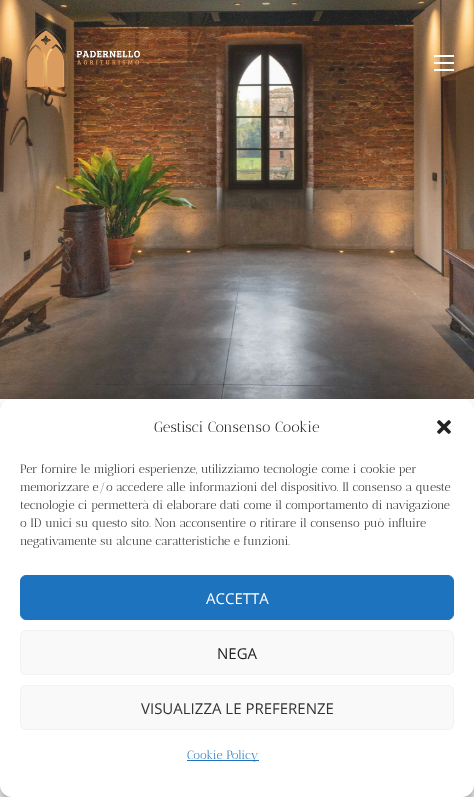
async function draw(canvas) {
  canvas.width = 474;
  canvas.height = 797;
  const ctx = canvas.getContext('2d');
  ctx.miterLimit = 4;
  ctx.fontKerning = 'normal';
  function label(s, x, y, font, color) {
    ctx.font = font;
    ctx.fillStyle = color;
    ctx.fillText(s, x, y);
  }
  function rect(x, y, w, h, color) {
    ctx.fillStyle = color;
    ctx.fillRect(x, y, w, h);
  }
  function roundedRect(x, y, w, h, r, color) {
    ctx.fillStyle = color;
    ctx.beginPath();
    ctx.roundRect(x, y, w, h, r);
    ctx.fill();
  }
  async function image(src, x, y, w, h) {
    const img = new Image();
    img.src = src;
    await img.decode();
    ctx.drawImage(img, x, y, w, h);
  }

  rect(0, 0, 474, 797, '#fff');
  await image('assets/img1.png', 0, 0, 474, 399);
  await image('assets/img2.png', 24, 28, 116, 59);
  rect(434, 55, 20, 2, '#fff');
  rect(434, 62, 20, 2, '#fff');
  rect(434, 69, 20, 2, '#fff');
  ctx.fillStyle = '#0000003b';
  ctx.filter = 'blur(3px)';
  ctx.beginPath();
  ctx.roundRect(0, 405, 474, 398, 12);
  ctx.fill();
  ctx.filter = 'none';
  ctx.fillStyle = '#00000030';
  ctx.filter = 'blur(10px)';
  ctx.beginPath();
  ctx.roundRect(0, 409, 474, 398, 12);
  ctx.fill();
  ctx.filter = 'none';
  roundedRect(0, 399, 474, 398, 12, '#fff');
  label('Gestisci Consenso Cookie', 154, 432, '15px Antic Didone', '#222');
  await image('assets/img3.png', 437, 420, 14, 14);
  label('Per fornire le migliori esperienze, utilizziamo tecnologie come i cookie per', 20, 473, '12px Antic Didone', '#222');
  label('memorizzare e/o accedere alle informazioni del dispositivo. Il consenso a queste', 20, 491, '12px Antic Didone', '#222');
  label('tecnologie ci permetterà di elaborare dati come il comportamento di navigazione', 20, 509, '12px Antic Didone', '#222');
  label('o ID unici su questo sito. Non acconsentire o ritirare il consenso può influire', 20, 527, '12px Antic Didone', '#222');
  label('negativamente su alcune caratteristiche e funzioni.', 20, 545, '12px Antic Didone', '#222');
  ctx.fillStyle = '#1e73be';
  ctx.beginPath();
  ctx.roundRect(20.5, 575.5, 433, 44, 5.5);
  ctx.fill();
  ctx.strokeStyle = '#1e73be';
  ctx.stroke();
  label('ACCETTA', 206, 604, '15px Open Sans', '#fff');
  ctx.fillStyle = '#f9f9f9';
  ctx.beginPath();
  ctx.roundRect(20.5, 630.5, 433, 44, 5.5);
  ctx.fill();
  ctx.strokeStyle = '#f2f2f2';
  ctx.stroke();
  label('NEGA', 217, 659, '15px Open Sans', '#222');
  ctx.fillStyle = '#f9f9f9';
  ctx.beginPath();
  ctx.roundRect(20.5, 685.5, 433, 44, 5.5);
  ctx.fill();
  ctx.stroke();
  label('VISUALIZZA LE PREFERENZE', 141, 714, '15px Open Sans', '#333');
  rect(187, 760, 72, 1, '#1e73be');
  label('Cookie Policy', 187, 759, '12px Antic Didone', '#1e73be');
}

draw(document.querySelector('canvas'));
